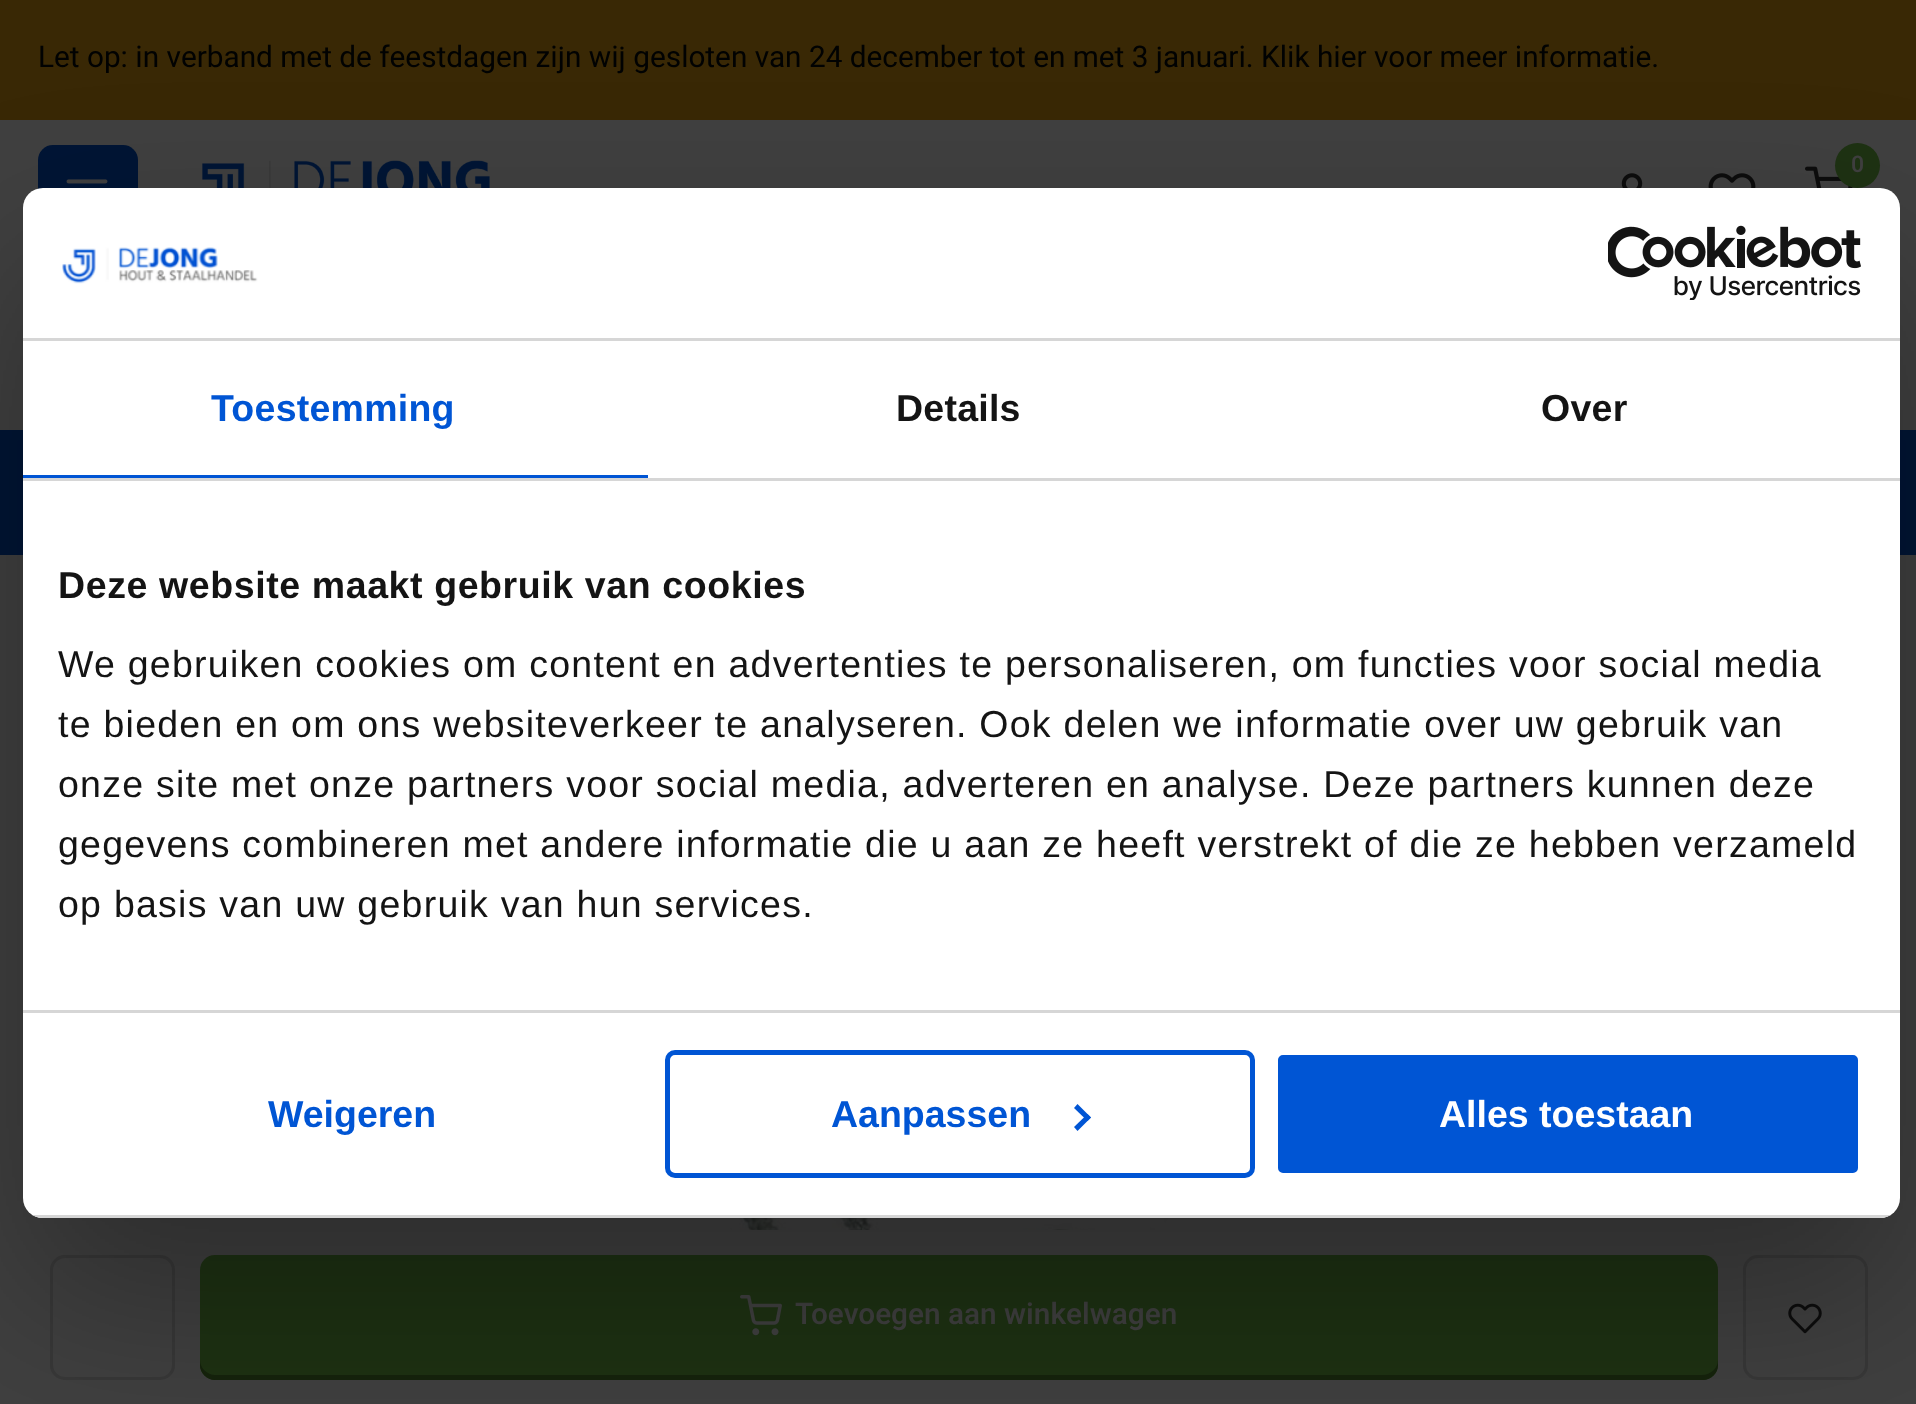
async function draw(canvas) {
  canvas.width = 1916;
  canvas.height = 1404;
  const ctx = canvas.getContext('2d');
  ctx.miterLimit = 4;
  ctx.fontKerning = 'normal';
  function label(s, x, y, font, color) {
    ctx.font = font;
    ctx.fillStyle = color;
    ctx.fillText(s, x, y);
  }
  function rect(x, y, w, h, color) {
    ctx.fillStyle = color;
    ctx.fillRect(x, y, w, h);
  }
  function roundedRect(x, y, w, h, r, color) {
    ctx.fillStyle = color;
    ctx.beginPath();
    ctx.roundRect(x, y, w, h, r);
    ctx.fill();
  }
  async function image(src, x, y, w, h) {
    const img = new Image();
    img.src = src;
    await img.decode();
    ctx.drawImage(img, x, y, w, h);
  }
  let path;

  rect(0, 0, 1916, 1404, '#404040');
  rect(0, 0, 1916, 120, '#392805');
  label('Let op: in verband met de feestdagen zijn wij gesloten van 24 december tot en met 3 januari. Klik hier voor meer informatie.', 38, 67, '29.75px Heebo', '#010202');
  roundedRect(38, 145, 100, 100, 15, '#001535');
  await image('assets/img1.png', 66, 179, 42, 5);
  await image('assets/img2.png', 180, 160, 390, 28);
  await image('assets/img3.png', 1805, 166, 48, 22);
  ctx.fillStyle = '#1e3213';
  ctx.beginPath();
  ctx.arc(1857.5, 165.5, 22.5, 0, 2 * Math.PI);
  ctx.fill();
  label('0', 1851, 172, '600 23px Heebo', '#404040');
  await image('assets/img4.png', 1621, 173, 22, 15);
  await image('assets/img5.png', 1708, 173, 48, 15);
  rect(0, 430, 1916, 125, '#001535');
  await image('assets/img6.png', 695, 1218, 515, 12);
  ctx.beginPath();
  ctx.roundRect(51.5, 1256.5, 122, 122, 13.5);
  ctx.strokeStyle = '#383838';
  ctx.lineWidth = 3;
  ctx.stroke();
  roundedRect(200, 1255, 1518, 125, 15, '#1e3213');
  ctx.fillStyle = '#16230c';
  path = new Path2D('M200 1360V1365C200 1373 207 1380 215 1380H1703C1711 1380 1718 1373 1718 1365V1360C1718 1368 1711 1375 1702 1375H215C207 1375 200 1368 200 1360Z');
  ctx.fill(path);
  await image('assets/img7.png', 740, 1295, 42, 41);
  label('Toevoegen aan winkelwagen', 795, 1324, '600 29.75px Heebo', '#404040');
  ctx.beginPath();
  ctx.roundRect(1744.5, 1256.5, 122, 122, 13.5);
  ctx.stroke();
  await image('assets/img8.png', 1788, 1303, 34, 31);
  ctx.save();
  path = new Path2D('M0 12H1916V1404H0ZM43 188H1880C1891 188 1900 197 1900 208V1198C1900 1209 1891 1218 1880 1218H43C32 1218 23 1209 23 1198V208C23 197 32 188 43 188Z');
  ctx.clip(path, 'evenodd');
  ctx.fillStyle = '#0000004d';
  ctx.filter = 'blur(85px)';
  ctx.beginPath();
  ctx.roundRect(23, 268, 1877, 1030, 20);
  ctx.fill();
  ctx.filter = 'none';
  ctx.restore();
  roundedRect(23, 188, 1877, 1030, 20, '#fff');
  rect(23, 338, 1877, 3, '#d6d6d6');
  await image('assets/img9.png', 62, 247, 196, 37);
  await image('assets/img10.png', 1608, 225, 253, 75);
  rect(23, 478, 1877, 3, '#d6d6d6');
  rect(23, 475, 625, 3, '#0055d4');
  ctx.letterSpacing = '0.25px';
  label('Toestemming', 211, 421, 'bold 37.5px Liberation Sans', '#0055d4');
  label('Details', 896, 421, 'bold 37.5px Liberation Sans', '#141414');
  label('Over', 1541, 421, 'bold 37.5px Liberation Sans', '#141414');
  rect(23, 1010, 1877, 3, '#d6d6d6');
  ctx.letterSpacing = '0.6px';
  label('Deze website maakt gebruik van cookies', 58, 598, 'bold 37.5px Liberation Sans', '#141414');
  ctx.letterSpacing = '1.25px';
  label('We gebruiken cookies om content en advertenties te personaliseren, om functies voor social media', 58, 677, '37.5px Liberation Sans', '#141414');
  label('te bieden en om ons websiteverkeer te analyseren. Ook delen we informatie over uw gebruik van', 58, 737, '37.5px Liberation Sans', '#141414');
  label('onze site met onze partners voor social media, adverteren en analyse. Deze partners kunnen deze', 58, 797, '37.5px Liberation Sans', '#141414');
  label('gegevens combineren met andere informatie die u aan ze heeft verstrekt of die ze hebben verzameld', 58, 857, '37.5px Liberation Sans', '#141414');
  label('op basis van uw gebruik van hun services.', 58, 917, '37.5px Liberation Sans', '#141414');
  ctx.save();
  ctx.beginPath();
  ctx.roundRect(23, 188, 1877, 1030, 20);
  ctx.clip();
  rect(32, 1215, 1859, 3, '#d6d6d6');
  ctx.restore();
  ctx.letterSpacing = '0px';
  label('Weigeren', 268, 1127, 'bold 37.5px Liberation Sans', '#0055d4');
  ctx.beginPath();
  ctx.roundRect(667.5, 1052.5, 585, 123, 7.5);
  ctx.strokeStyle = '#0055d4';
  ctx.lineWidth = 5;
  ctx.stroke();
  label('Aanpassen', 831, 1127, 'bold 37.5px Liberation Sans', '#0055d4');
  path = new Path2D('M1077.5 1104L1091 1117.5L1087.5 1121L1074 1108Z');
  ctx.fill(path);
  path = new Path2D('M1087.5 1114L1091 1117.5L1077.5 1131L1074 1127Z');
  ctx.fill(path);
  ctx.beginPath();
  ctx.roundRect(1275.5, 1052.5, 585, 123, 7.5);
  ctx.fill();
  ctx.strokeStyle = '#fff';
  ctx.stroke();
  label('Alles toestaan', 1439, 1127, 'bold 37.5px Liberation Sans', '#fff');
}

draw(document.querySelector('canvas'));
